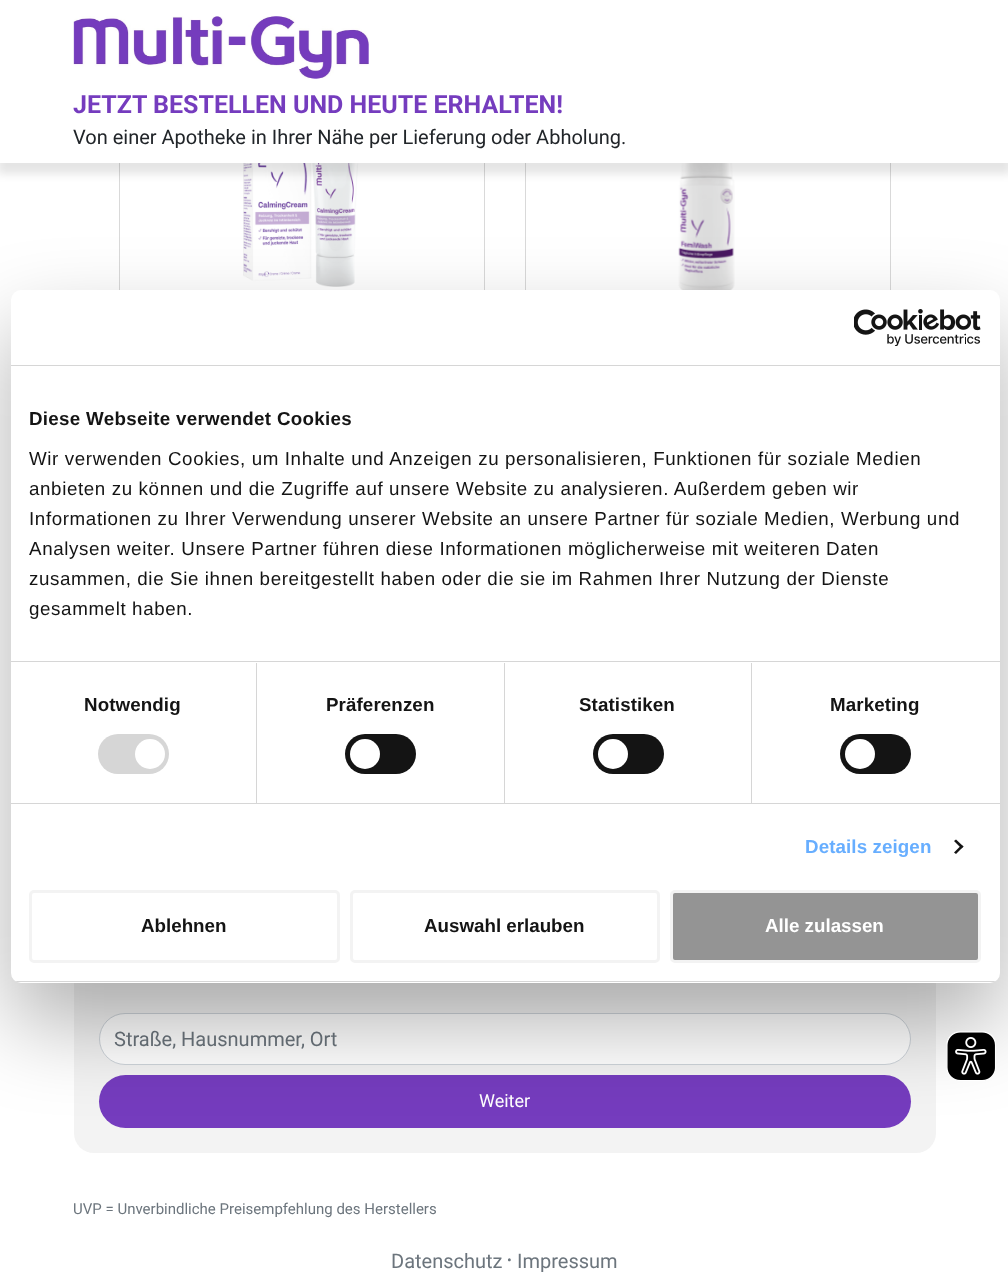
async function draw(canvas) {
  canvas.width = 1008;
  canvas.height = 1272;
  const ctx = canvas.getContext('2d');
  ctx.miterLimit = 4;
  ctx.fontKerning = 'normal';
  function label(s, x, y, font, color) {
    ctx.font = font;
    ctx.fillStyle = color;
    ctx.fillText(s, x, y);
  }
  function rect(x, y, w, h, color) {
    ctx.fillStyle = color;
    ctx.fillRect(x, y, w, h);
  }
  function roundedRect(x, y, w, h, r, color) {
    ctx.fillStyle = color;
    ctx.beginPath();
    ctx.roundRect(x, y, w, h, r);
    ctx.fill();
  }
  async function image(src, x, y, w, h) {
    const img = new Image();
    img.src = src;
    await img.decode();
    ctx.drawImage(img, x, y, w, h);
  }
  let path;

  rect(0, 0, 1008, 1272, '#fff');
  ctx.strokeStyle = '#d9d9d9';
  ctx.strokeRect(119.5, 53.5, 365, 484);
  await image('assets/img2.png', 243, 163, 116, 124);
  ctx.strokeRect(525.5, 53.5, 365, 484);
  await image('assets/img3.png', 678, 163, 57, 127);
  ctx.fillStyle = '#0000001a';
  ctx.filter = 'blur(4.5px)';
  ctx.beginPath();
  ctx.rect(-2, 6, 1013, 168);
  ctx.fill();
  ctx.filter = 'none';
  rect(0, 0, 1008, 163, '#fff');
  await image('assets/img1.png', 73, 16, 296, 63);
  label('JETZT BESTELLEN UND HEUTE ERHALTEN!', 73, 113, 'bold 25px Roboto', '#753cbe');
  label('Von einer Apotheke in Ihrer Nähe per Lieferung oder Abholung.', 73, 144, '20px Roboto', '#212529');
  roundedRect(74, 576, 862, 577, 20, '#f3f3f3');
  ctx.fillStyle = '#fff';
  ctx.beginPath();
  ctx.roundRect(99.5, 1013.5, 811, 51, 25.5);
  ctx.fill();
  ctx.strokeStyle = '#ced4da';
  ctx.stroke();
  label('Straße, Hausnummer, Ort', 114, 1046, '20px Roboto', '#6c757d');
  roundedRect(99, 1075, 812, 53, 26.5, '#753cbe');
  label('Weiter', 479, 1107, '18px Roboto', '#fff');
  label('UVP = Unverbindliche Preisempfehlung des Herstellers', 73, 1214, '15px Roboto', '#6c757d');
  label('Datenschutz', 391, 1268, '20px Roboto', '#6c757d');
  label('•', 507, 1265, '14px Roboto', '#6c757d');
  label('Impressum', 517, 1268, '20px Roboto', '#6c757d');
  ctx.fillStyle = '#0000004d';
  ctx.filter = 'blur(42.5px)';
  ctx.beginPath();
  ctx.roundRect(11, 330, 989, 693, 10);
  ctx.fill();
  ctx.filter = 'none';
  roundedRect(11, 290, 989, 693, 10, '#fff');
  rect(11, 365, 989, 1, '#d6d6d6');
  await image('assets/img4.png', 854, 309, 127, 37);
  rect(11, 661, 989, 1, '#d6d6d6');
  ctx.letterSpacing = '0.3px';
  label('Diese Webseite verwendet Cookies', 29, 425, 'bold 18.75px Liberation Sans', '#141414');
  ctx.letterSpacing = '0.62px';
  label('Wir verwenden Cookies, um Inhalte und Anzeigen zu personalisieren, Funktionen für soziale Medien', 29, 465, '18.75px Liberation Sans', '#141414');
  label('anbieten zu können und die Zugriffe auf unsere Website zu analysieren. Außerdem geben wir', 29, 495, '18.75px Liberation Sans', '#141414');
  label('Informationen zu Ihrer Verwendung unserer Website an unsere Partner für soziale Medien, Werbung und', 29, 525, '18.75px Liberation Sans', '#141414');
  label('Analysen weiter. Unsere Partner führen diese Informationen möglicherweise mit weiteren Daten', 29, 555, '18.75px Liberation Sans', '#141414');
  label('zusammen, die Sie ihnen bereitgestellt haben oder die sie im Rahmen Ihrer Nutzung der Dienste', 29, 585, '18.75px Liberation Sans', '#141414');
  label('gesammelt haben.', 29, 615, '18.75px Liberation Sans', '#141414');
  rect(11, 803, 989, 1, '#d6d6d6');
  rect(256, 663, 1, 140, '#d6d6d6');
  ctx.letterSpacing = '0.1px';
  label('Notwendig', 84, 711, 'bold 18.75px Liberation Sans', '#141414');
  roundedRect(98, 734, 71, 40, 20, '#d6d6d6');
  ctx.fillStyle = '#fff';
  ctx.beginPath();
  ctx.arc(150, 754, 15, 0, 2 * Math.PI);
  ctx.fill();
  rect(504, 663, 1, 140, '#d6d6d6');
  label('Präferenzen', 326, 711, 'bold 18.75px Liberation Sans', '#141414');
  roundedRect(345, 734, 71, 40, 20, '#141414');
  ctx.fillStyle = '#fff';
  ctx.beginPath();
  ctx.arc(365, 754, 15, 0, 2 * Math.PI);
  ctx.fill();
  rect(751, 663, 1, 140, '#d6d6d6');
  label('Statistiken', 579, 711, 'bold 18.75px Liberation Sans', '#141414');
  roundedRect(593, 734, 71, 40, 20, '#141414');
  ctx.fillStyle = '#fff';
  ctx.beginPath();
  ctx.arc(613, 754, 15, 0, 2 * Math.PI);
  ctx.fill();
  label('Marketing', 830, 711, 'bold 18.75px Liberation Sans', '#141414');
  roundedRect(840, 734, 71, 40, 20, '#141414');
  ctx.fillStyle = '#fff';
  ctx.beginPath();
  ctx.arc(860, 754, 15, 0, 2 * Math.PI);
  ctx.fill();
  label('Details zeigen', 805, 853, 'bold 18.75px Liberation Sans', '#67aeff');
  ctx.fillStyle = '#141414';
  path = new Path2D('M956 839.5L963.5 846.5L961.5 848.5L954 841Z');
  ctx.fill(path);
  path = new Path2D('M961.5 845L963.5 846.5L956 854L954 852.5Z');
  ctx.fill(path);
  ctx.save();
  ctx.beginPath();
  ctx.roundRect(11, 290, 989, 693, 10);
  ctx.clip();
  rect(11, 981, 989, 1, '#d6d6d6');
  ctx.restore();
  ctx.beginPath();
  ctx.roundRect(30.5, 891.5, 308, 70, 3.5);
  ctx.strokeStyle = '#f3f3f3';
  ctx.lineWidth = 3;
  ctx.stroke();
  ctx.letterSpacing = '0px';
  label('Ablehnen', 141, 932, 'bold 18.75px Liberation Sans', '#141414');
  ctx.beginPath();
  ctx.roundRect(351.5, 891.5, 307, 70, 3.5);
  ctx.stroke();
  label('Auswahl erlauben', 424, 932, 'bold 18.75px Liberation Sans', '#141414');
  ctx.fillStyle = '#949494';
  ctx.beginPath();
  ctx.roundRect(671.5, 891.5, 308, 70, 3.5);
  ctx.fill();
  ctx.stroke();
  label('Alle zulassen', 765, 932, 'bold 18.75px Liberation Sans', '#fff');
  await image('assets/img5.png', 946, 1031, 50, 50);
}

draw(document.querySelector('canvas'));
